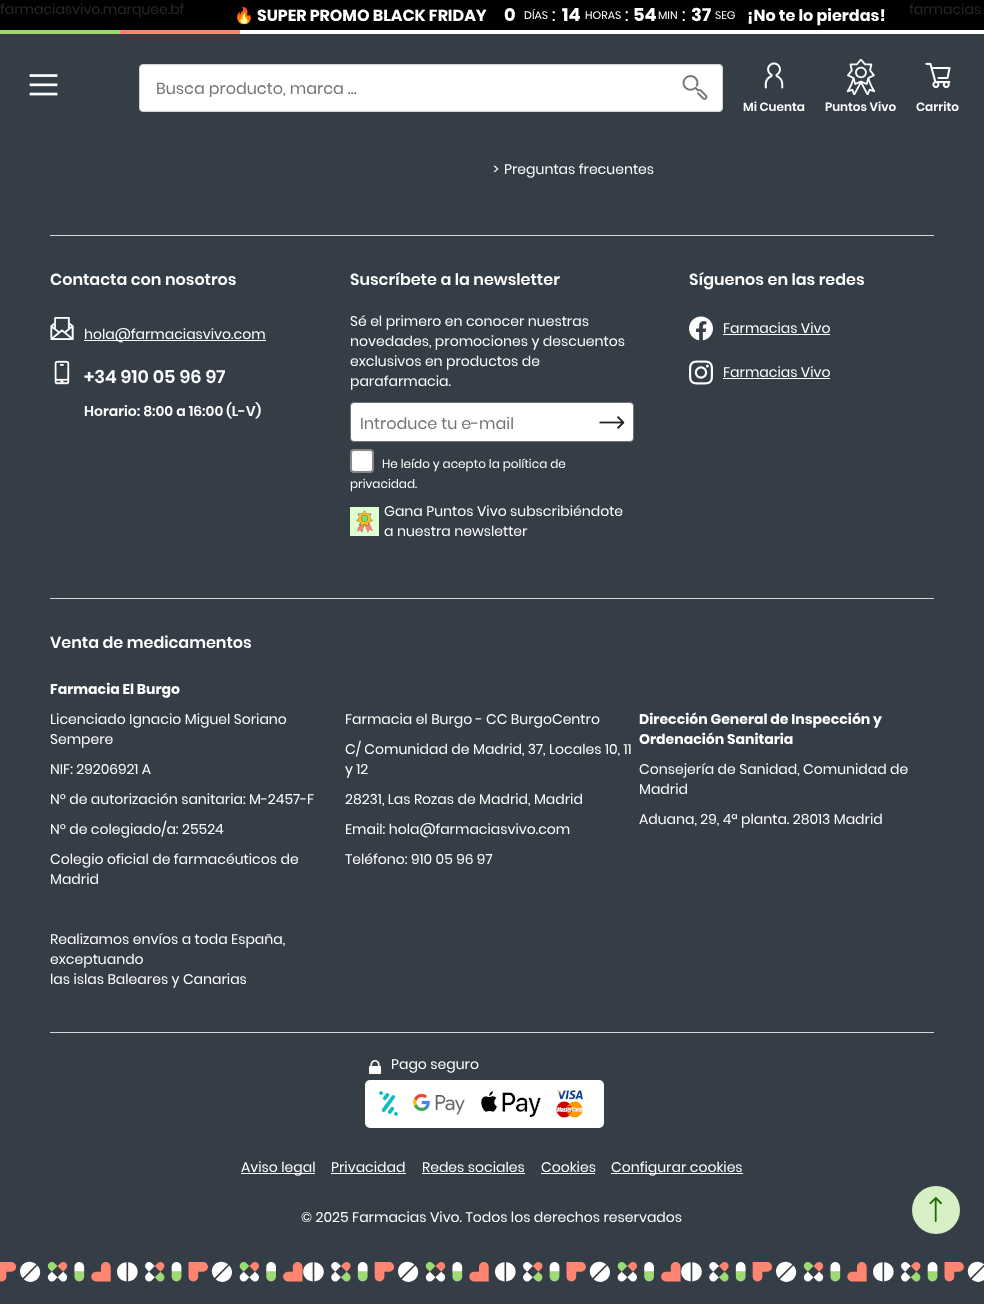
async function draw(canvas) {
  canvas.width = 984;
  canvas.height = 1304;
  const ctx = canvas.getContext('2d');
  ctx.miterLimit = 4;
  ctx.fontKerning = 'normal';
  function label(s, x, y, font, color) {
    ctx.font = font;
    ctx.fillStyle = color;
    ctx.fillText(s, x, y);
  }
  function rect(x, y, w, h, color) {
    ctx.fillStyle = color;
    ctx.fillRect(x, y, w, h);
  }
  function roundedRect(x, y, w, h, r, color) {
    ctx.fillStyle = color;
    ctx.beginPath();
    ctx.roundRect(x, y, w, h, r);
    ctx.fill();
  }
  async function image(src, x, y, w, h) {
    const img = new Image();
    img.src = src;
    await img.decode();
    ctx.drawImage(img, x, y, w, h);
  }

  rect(0, 0, 984, 1304, '#353e47');
  rect(0, 0, 984, 30, '#000');
  label('farmaciasvivo.marquee.bf', 0, 14, '14px Poppins', '#282828');
  label('🔥', 234, 21, 'bold 16px Noto Color Emoji', '#fff');
  label('SUPER PROMO BLACK FRIDAY', 257, 21, 'bold 16px Poppins', '#fff');
  label('0', 504, 21, 'bold 18px Poppins', '#fff');
  label('DÍAS', 524, 19, '11px Poppins', '#fff');
  label(':', 552, 21, '18px Poppins', '#fff');
  label('14', 562, 21, 'bold 18px Poppins', '#fff');
  label('HORAS', 585, 19, '11px Poppins', '#fff');
  label(':', 625, 21, '18px Poppins', '#fff');
  label('54', 633, 21, 'bold 18px Poppins', '#fff');
  label('MIN', 658, 19, '11px Poppins', '#fff');
  label(':', 682, 21, '18px Poppins', '#fff');
  label('37', 691, 21, 'bold 18px Poppins', '#fff');
  label('SEG', 715, 19, '11px Poppins', '#fff');
  label('¡No te lo pierdas!', 747, 21, 'bold 16px Poppins', '#fff');
  label('farmacias', 909, 14, '14px Poppins', '#282828');
  rect(0, 30, 120, 4, '#9eda74');
  rect(120, 30, 120, 4, '#ff8571');
  rect(240, 30, 744, 4, '#fff');
  await image('assets/img1.png', 29, 74, 29, 22);
  ctx.beginPath();
  ctx.roundRect(139.5, 64.5, 583, 47, 3.5);
  ctx.fill();
  ctx.strokeStyle = '#d5d5d5';
  ctx.stroke();
  ctx.save();
  ctx.beginPath();
  ctx.rect(156, 81, 531, 16);
  ctx.clip();
  label('Busca producto, marca …', 156, 94, '16px Poppins', '#747474');
  ctx.restore();
  await image('assets/img2.png', 682, 75, 26, 25);
  await image('assets/img3.png', 764, 62, 20, 27);
  label('Mi Cuenta', 743, 111, '600 12px Poppins', '#fff');
  await image('assets/img4.png', 847, 59, 28, 36);
  label('Puntos Vivo', 825, 111, '600 12px Poppins', '#fff');
  await image('assets/img5.png', 925, 62, 26, 27);
  label('Carrito', 916, 111, '600 12px Poppins', '#fff');
  label('>', 493, 174, '14px Poppins', '#fff');
  label('Preguntas frecuentes', 504, 174, '14px Poppins', '#fff');
  rect(50, 235, 884, 1, '#d5d5d5');
  label('Contacta con nosotros', 50, 285, '600 16px Poppins', '#fff');
  await image('assets/img6.png', 50, 317, 24, 23);
  rect(84, 340, 182, 1, '#fff');
  label('hola@farmaciasvivo.com', 84, 339, '14px Poppins', '#fff');
  await image('assets/img7.png', 54, 360, 16, 25);
  label('+34 910 05 96 97', 84, 383, '600 18px Poppins', '#fff');
  label('Horario: 8:00 a 16:00 (L-V)', 84, 416, '600 14px Poppins', '#fff');
  label('Suscríbete a la newsletter', 350, 285, '600 16px Poppins', '#fff');
  label('Sé el primero en conocer nuestras', 350, 326, '14px Poppins', '#fff');
  label('novedades, promociones y descuentos', 350, 346, '14px Poppins', '#fff');
  label('exclusivos en productos de', 350, 366, '14px Poppins', '#fff');
  label('parafarmacia.', 350, 386, '14px Poppins', '#fff');
  ctx.beginPath();
  ctx.roundRect(350.5, 402.5, 283, 39, 3.5);
  ctx.fill();
  ctx.strokeStyle = '#747474';
  ctx.stroke();
  label('Introduce tu e-mail', 360, 429, '16px Poppins', '#747474');
  await image('assets/img8.png', 599, 416, 26, 13);
  ctx.fillStyle = '#fff';
  ctx.beginPath();
  ctx.roundRect(351, 450, 22, 22, 3);
  ctx.fill();
  ctx.strokeStyle = '#888';
  ctx.lineWidth = 2;
  ctx.stroke();
  label('He leído y acepto la política de', 382, 468, '12px Poppins', '#fff');
  label('privacidad.', 350, 488, '12px Poppins', '#fff');
  await image('assets/img9.png', 350, 507, 29, 29);
  label('Gana Puntos Vivo subscribiéndote', 384, 516, '14px Poppins', '#fff');
  label('a nuestra newsletter', 384, 536, '14px Poppins', '#fff');
  label('Síguenos en las redes', 689, 285, '600 16px Poppins', '#fff');
  await image('assets/img10.png', 689, 316, 24, 25);
  label('Farmacias Vivo', 723, 333, '14px Poppins', '#fff');
  rect(723, 334, 107, 1, '#fff');
  await image('assets/img11.png', 689, 360, 24, 25);
  label('Farmacias Vivo', 723, 377, '14px Poppins', '#fff');
  rect(723, 378, 107, 1, '#fff');
  rect(50, 598, 884, 1, '#d5d5d5');
  label('Venta de medicamentos', 50, 648, '600 16px Poppins', '#fff');
  label('Farmacia El Burgo', 50, 694, 'bold 14px Poppins', '#fff');
  label('Licenciado Ignacio Miguel Soriano', 50, 724, '14px Poppins', '#fff');
  label('Sempere', 50, 744, '14px Poppins', '#fff');
  label('NIF: 29206921 A', 50, 774, '14px Poppins', '#fff');
  label('Nº de autorización sanitaria: M-2457-F', 50, 804, '14px Poppins', '#fff');
  label('Nº de colegiado/a: 25524', 50, 834, '14px Poppins', '#fff');
  label('Colegio oficial de farmacéuticos de', 50, 864, '14px Poppins', '#fff');
  label('Madrid', 50, 884, '14px Poppins', '#fff');
  label('Realizamos envíos a toda España,', 50, 944, '14px Poppins', '#fff');
  label('exceptuando', 50, 964, '14px Poppins', '#fff');
  label('las islas Baleares y Canarias', 50, 984, '14px Poppins', '#fff');
  label('Farmacia el Burgo - CC BurgoCentro', 345, 724, '14px Poppins', '#fff');
  label('C/ Comunidad de Madrid, 37, Locales 10, 11', 345, 754, '14px Poppins', '#fff');
  label('y 12', 345, 774, '14px Poppins', '#fff');
  label('28231, Las Rozas de Madrid, Madrid', 345, 804, '14px Poppins', '#fff');
  label('Email: hola@farmaciasvivo.com', 345, 834, '14px Poppins', '#fff');
  label('Teléfono: 910 05 96 97', 345, 864, '14px Poppins', '#fff');
  label('Dirección General de Inspección y', 639, 724, 'bold 14px Poppins', '#fff');
  label('Ordenación Sanitaria', 639, 744, 'bold 14px Poppins', '#fff');
  label('Consejería de Sanidad, Comunidad de', 639, 774, '14px Poppins', '#fff');
  label('Madrid', 639, 794, '14px Poppins', '#fff');
  label('Aduana, 29, 4ª planta. 28013 Madrid', 639, 824, '14px Poppins', '#fff');
  rect(50, 1032, 884, 1, '#d5d5d5');
  await image('assets/img12.png', 368, 1059, 14, 16);
  label('Pago seguro', 391, 1069, '14px Poppins', '#fff');
  roundedRect(365, 1080, 239, 48, 5, '#fff');
  await image('assets/img13.png', 379, 1091, 19, 25);
  await image('assets/img14.png', 413, 1093, 52, 22);
  await image('assets/img15.png', 481, 1091, 60, 26);
  await image('assets/img16.png', 556, 1090, 27, 28);
  rect(241, 1173, 74, 1, '#fff');
  label('Aviso legal', 241, 1172, '14px Poppins', '#fff');
  label('Privacidad', 331, 1172, '14px Poppins', '#fff');
  rect(331, 1173, 75, 1, '#fff');
  label('Redes sociales', 422, 1172, '14px Poppins', '#fff');
  rect(422, 1173, 103, 1, '#fff');
  label('Cookies', 541, 1172, '14px Poppins', '#fff');
  rect(541, 1173, 54, 1, '#fff');
  rect(611, 1173, 132, 1, '#fff');
  label('Configurar cookies', 611, 1172, '14px Poppins', '#fff');
  label('© 2025 Farmacias Vivo. Todos los derechos reservados', 301, 1222, '14px Poppins', '#fff');
  await image('assets/img17.png', 0, 1261, 984, 21);
  ctx.fillStyle = '#d6efc5';
  ctx.beginPath();
  ctx.arc(936, 1210, 24, 0, 2 * Math.PI);
  ctx.fill();
  await image('assets/img18.png', 929, 1197, 13, 25);
}

draw(document.querySelector('canvas'));
